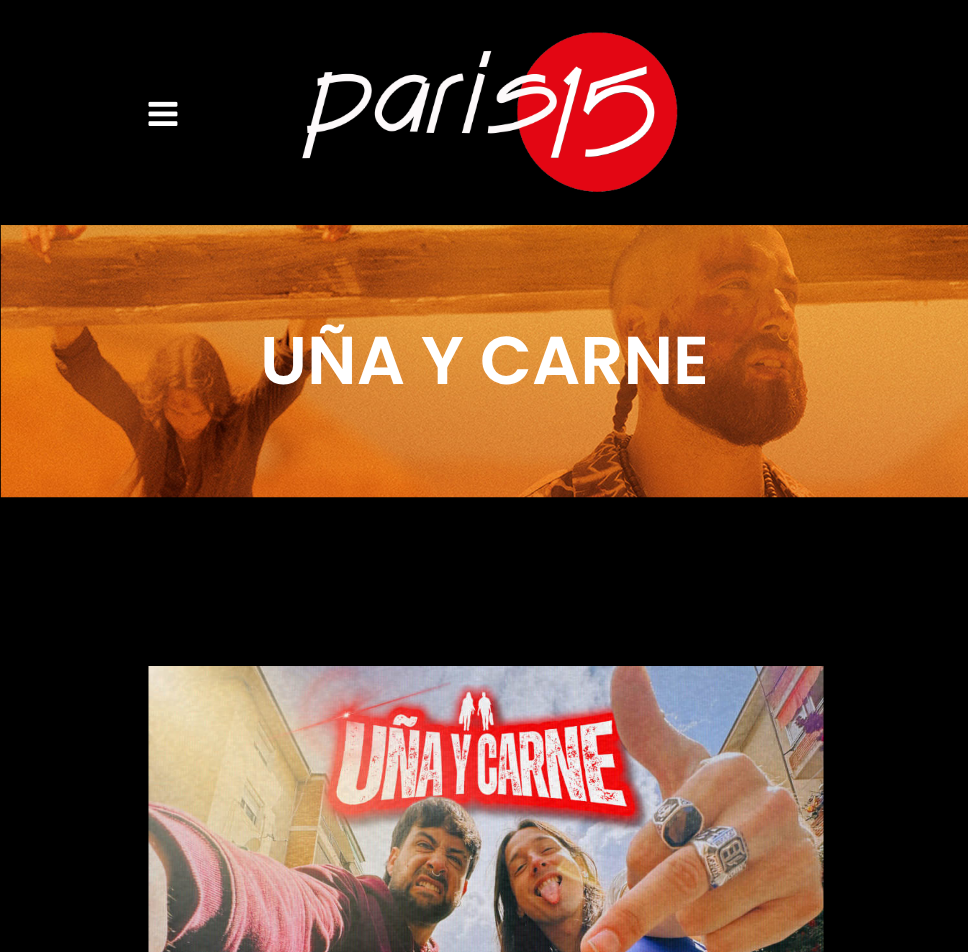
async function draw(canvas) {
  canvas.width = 968;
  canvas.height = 952;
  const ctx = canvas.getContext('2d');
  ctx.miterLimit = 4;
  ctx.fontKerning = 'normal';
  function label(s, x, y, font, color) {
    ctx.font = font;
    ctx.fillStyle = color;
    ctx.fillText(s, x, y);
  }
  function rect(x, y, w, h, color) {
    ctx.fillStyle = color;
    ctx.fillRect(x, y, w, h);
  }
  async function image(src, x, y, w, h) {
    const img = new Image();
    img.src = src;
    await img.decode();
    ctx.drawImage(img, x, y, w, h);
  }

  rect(0, 0, 968, 952, '#000');
  await image('assets/img3.png', 0, 225, 968, 273);
  ctx.save();
  ctx.beginPath();
  ctx.rect(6, 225, 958, 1);
  ctx.clip();
  ctx.fillStyle = '#00000080';
  ctx.filter = 'blur(2px)';
  ctx.beginPath();
  ctx.rect(7, 11, 956, 212);
  ctx.fill();
  ctx.filter = 'none';
  ctx.restore();
  await image('assets/img1.png', 148, 101, 30, 25);
  await image('assets/img2.png', 302, 32, 376, 160);
  label('UÑA Y CARNE', 260, 384, '600 67.5px Poppins', '#fff');
  await image('assets/img4.png', 148, 666, 676, 286);
}

draw(document.querySelector('canvas'));
